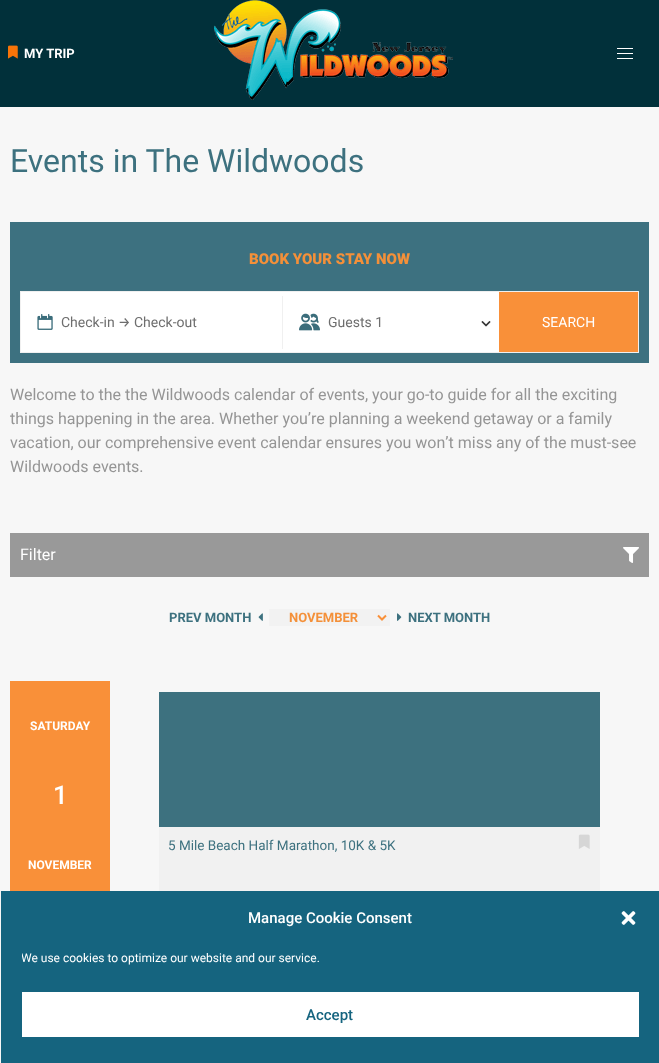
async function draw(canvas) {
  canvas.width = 659;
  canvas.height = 1063;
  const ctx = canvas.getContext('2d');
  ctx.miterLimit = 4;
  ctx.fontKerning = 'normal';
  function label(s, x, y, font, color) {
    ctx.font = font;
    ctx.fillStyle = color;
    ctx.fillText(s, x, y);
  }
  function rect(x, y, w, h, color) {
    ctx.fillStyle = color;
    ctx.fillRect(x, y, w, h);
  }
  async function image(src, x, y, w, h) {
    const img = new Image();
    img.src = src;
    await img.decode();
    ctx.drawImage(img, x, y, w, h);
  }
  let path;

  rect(0, 0, 659, 1063, '#f7f7f7');
  rect(0, 0, 659, 107, '#01303a');
  await image('assets/img1.png', 8, 45, 10, 14);
  label('MY TRIP', 24, 58, 'bold 13px Roboto', '#fff');
  await image('assets/img2.png', 214, 0, 239, 100);
  rect(617, 48, 16, 1, '#fff');
  rect(617, 53, 16, 1, '#fff');
  rect(617, 58, 16, 1, '#fff');
  label('Events in The Wildwoods', 10, 172, '32px Roboto', '#3d717f');
  rect(10, 222, 639, 141, '#3d7180');
  label('BOOK YOUR STAY NOW', 249, 264, '900 15px Roboto', '#f49039');
  rect(21, 292, 478, 60, '#fff');
  ctx.strokeStyle = '#f0f0f0';
  ctx.strokeRect(20.5, 291.5, 618, 61);
  rect(282, 296, 1, 53, '#f0f0f0');
  await image('assets/img3.png', 37, 314, 16, 16);
  label('Check-in', 61, 327, '14px Roboto', '#6e6e6e');
  label('→', 118, 327, '14px Fira Sans', '#6e6e6e');
  label('Check-out', 134, 327, '14px Roboto', '#6e6e6e');
  await image('assets/img4.png', 299, 313, 21, 18);
  label('Guests 1', 328, 327, '14px Roboto', '#6e6e6e');
  await image('assets/img5.png', 481, 321, 10, 6);
  rect(499, 292, 139, 60, '#f99039');
  label('SEARCH', 542, 327, '14px Roboto', '#fff');
  label('Welcome to the the Wildwoods calendar of events, your go-to guide for all the exciting', 10, 400, '16px Roboto', '#959595');
  label('things happening in the area. Whether you’re planning a weekend getaway or a family', 10, 424, '16px Roboto', '#959595');
  label('vacation, our comprehensive event calendar ensures you won’t miss any of the must-see', 10, 448, '16px Roboto', '#959595');
  label('Wildwoods events.', 10, 472, '16px Roboto', '#959595');
  rect(10, 533, 639, 44, '#999');
  label('Filter', 20, 560, '16px Roboto', '#fff');
  await image('assets/img6.png', 623, 547, 16, 16);
  label('PREV MONTH', 169, 622, 'bold 13px Roboto', '#3d717f');
  await image('assets/img7.png', 258, 613, 5, 8);
  rect(269, 609, 121, 17, '#f2f2f2');
  path = new Path2D('M378 615.5L382 619.5L386 615.5');
  ctx.strokeStyle = '#f99039';
  ctx.lineWidth = 2;
  ctx.stroke(path);
  label('NOVEMBER', 289, 622, 'bold 13px Roboto', '#f49039');
  await image('assets/img8.png', 397, 613, 5, 8);
  label('NEXT MONTH', 408, 622, 'bold 13px Roboto', '#3d717f');
  rect(10, 681, 100, 210, '#f99039');
  label('SATURDAY', 30, 730, 'bold 12px Roboto', '#fff');
  label('1', 53, 804, '500 26px Roboto', '#fff');
  label('NOVEMBER', 28, 869, 'bold 12px Roboto', '#fff');
  rect(159, 692, 441, 135, '#3d717f');
  rect(159, 827, 441, 64, '#f1f1f1');
  label('5 Mile Beach Half Marathon, 10K & 5K', 168, 850, '13.5px Roboto', '#3d717f');
  await image('assets/img9.png', 578, 834, 12, 15);
  rect(1, 891, 658, 172, '#15647f');
  label('Manage Cookie Consent', 248, 923, '500 15px Roboto', '#fff');
  await image('assets/img10.png', 621, 911, 15, 14);
  ctx.save();
  ctx.beginPath();
  ctx.rect(22, 949, 617, 23);
  ctx.clip();
  label('We use cookies to optimize our website and our service.', 21, 962, '12px Roboto', '#fff');
  ctx.restore();
  rect(22, 992, 617, 45, '#fff');
  label('Accept', 306, 1020, '500 15px Roboto', '#15647f');
}

draw(document.querySelector('canvas'));
